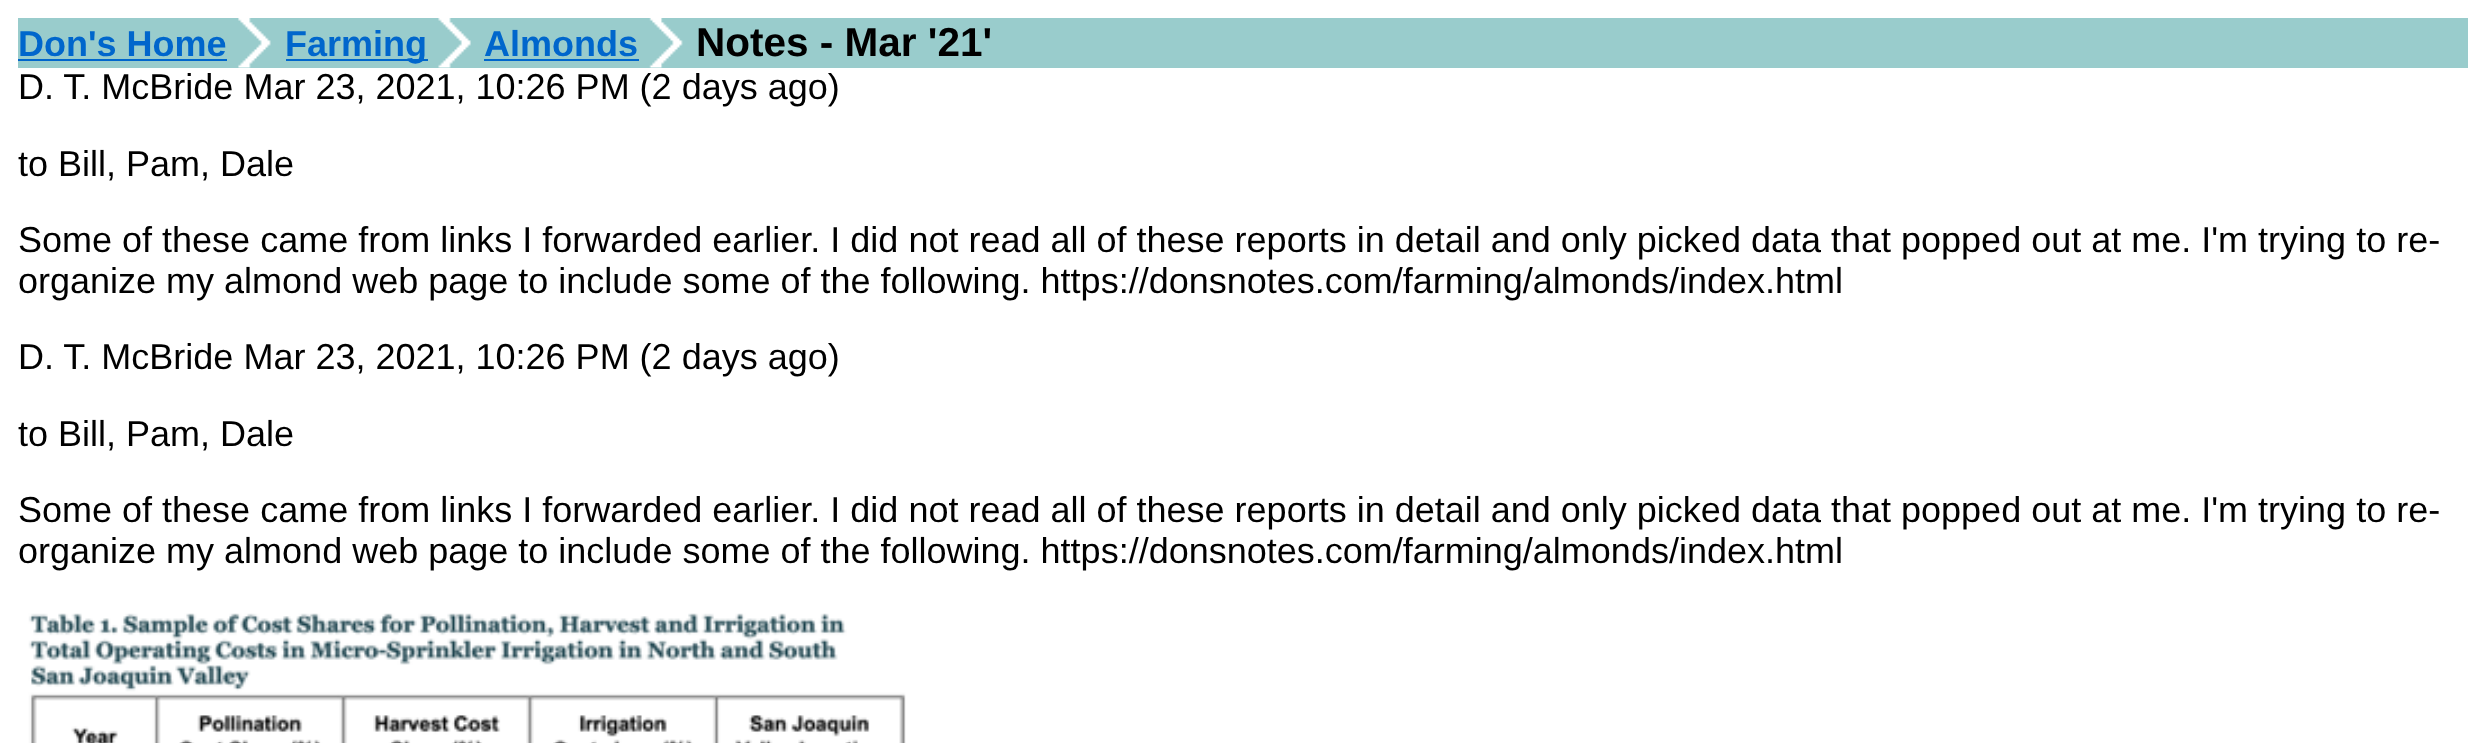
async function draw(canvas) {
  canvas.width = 2486;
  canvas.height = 743;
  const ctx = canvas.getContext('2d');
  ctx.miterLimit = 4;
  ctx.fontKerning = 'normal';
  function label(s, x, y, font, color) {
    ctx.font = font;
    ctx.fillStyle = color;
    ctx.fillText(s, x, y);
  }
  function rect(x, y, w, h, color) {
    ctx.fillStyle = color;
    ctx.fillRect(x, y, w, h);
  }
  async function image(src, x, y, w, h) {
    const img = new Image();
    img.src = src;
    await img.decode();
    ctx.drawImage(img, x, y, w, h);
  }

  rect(0, 0, 2486, 743, '#fff');
  rect(18, 18, 2450, 50, '#9cc');
  label('Don\'s Home', 18, 56, 'bold 36px Liberation Sans', '#06c');
  rect(18, 59, 209, 2, '#06c');
  await image('assets/img1.png', 238, 18, 33, 50);
  rect(286, 59, 142, 2, '#06c');
  label('Farming', 285, 56, 'bold 36px Liberation Sans', '#06c');
  await image('assets/img2.png', 438, 18, 33, 50);
  label('Almonds', 484, 56, 'bold 36px Liberation Sans', '#06c');
  rect(484, 59, 155, 2, '#06c');
  await image('assets/img3.png', 649, 18, 34, 50);
  label('Notes - Mar \'21\'', 696, 56, 'bold 40.5px Liberation Sans', '#000');
  label('D. T. McBride Mar 23, 2021, 10:26 PM (2 days ago)', 18, 99, '36px Liberation Sans', '#000');
  label('to Bill, Pam, Dale', 18, 176, '36px Liberation Sans', '#000');
  label('Some of these came from links I forwarded earlier. I did not read all of these reports in detail and only picked data that popped out at me. I\'m trying to re-', 18, 252, '36px Liberation Sans', '#000');
  label('organize my almond web page to include some of the following. https://donsnotes.com/farming/almonds/index.html', 18, 293, '36px Liberation Sans', '#000');
  label('D. T. McBride Mar 23, 2021, 10:26 PM (2 days ago)', 18, 369, '36px Liberation Sans', '#000');
  label('to Bill, Pam, Dale', 18, 446, '36px Liberation Sans', '#000');
  label('Some of these came from links I forwarded earlier. I did not read all of these reports in detail and only picked data that popped out at me. I\'m trying to re-', 18, 522, '36px Liberation Sans', '#000');
  label('organize my almond web page to include some of the following. https://donsnotes.com/farming/almonds/index.html', 18, 563, '36px Liberation Sans', '#000');
  await image('assets/img4.png', 28, 613, 878, 130);
}

draw(document.querySelector('canvas'));
